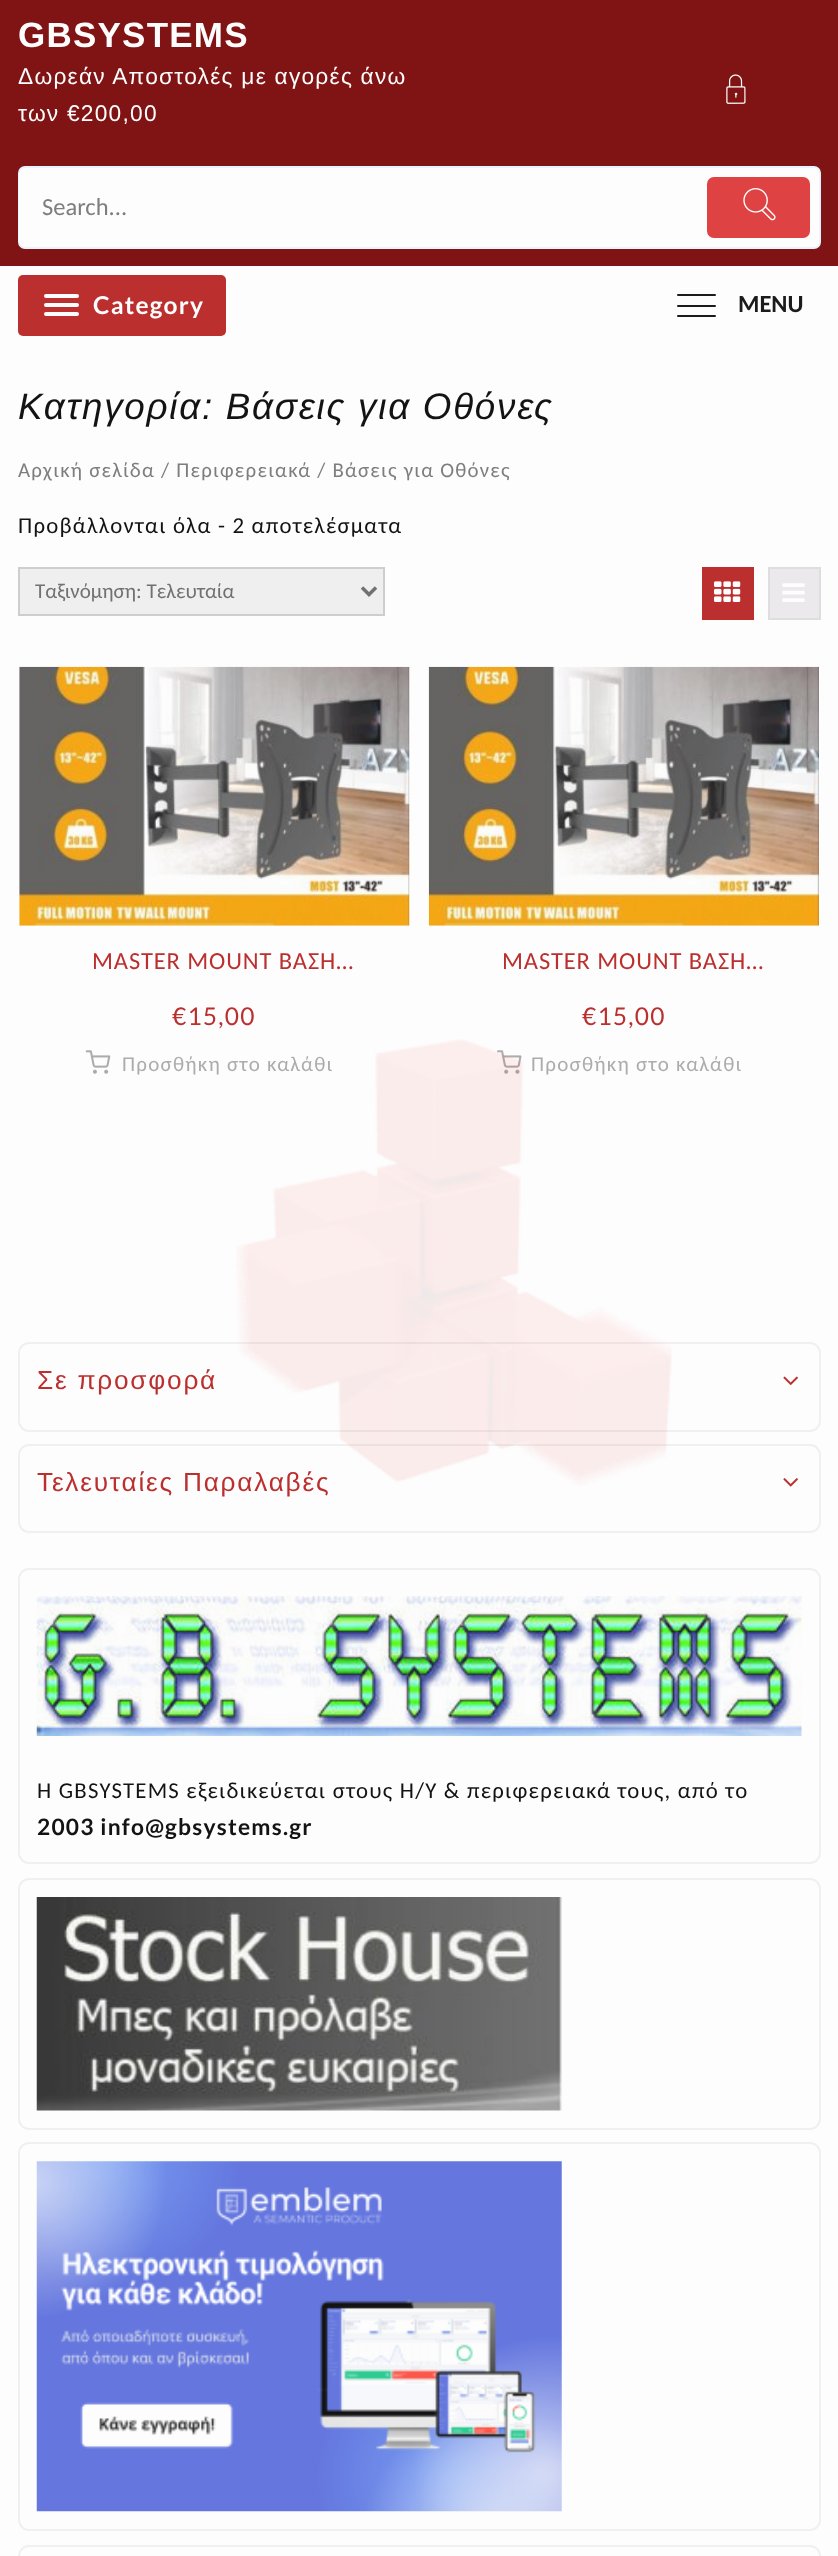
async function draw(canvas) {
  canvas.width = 838;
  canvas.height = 2556;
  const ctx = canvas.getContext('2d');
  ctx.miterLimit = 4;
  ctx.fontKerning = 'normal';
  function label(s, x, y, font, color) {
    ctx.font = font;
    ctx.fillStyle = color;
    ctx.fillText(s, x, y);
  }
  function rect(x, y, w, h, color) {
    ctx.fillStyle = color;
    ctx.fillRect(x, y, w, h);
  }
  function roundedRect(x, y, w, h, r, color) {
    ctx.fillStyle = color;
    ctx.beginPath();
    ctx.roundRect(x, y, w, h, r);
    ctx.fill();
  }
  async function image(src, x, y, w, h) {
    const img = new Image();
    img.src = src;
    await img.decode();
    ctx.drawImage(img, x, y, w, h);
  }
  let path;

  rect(0, 0, 838, 2556, '#fdfdfd');
  rect(0, 0, 838, 266, '#801313');
  ctx.letterSpacing = '1.22px';
  label('GBSYSTEMS', 18, 47, 'bold 35px Liberation Sans', '#fdfdfd');
  label('Δωρεάν Αποστολές με αγορές άνω', 18, 84, '22.75px Liberation Sans', '#fdfdfd');
  label('των €200,00', 18, 121, '22.75px Liberation Sans', '#fdfdfd');
  await image('assets/img1.png', 726, 74, 20, 30);
  ctx.beginPath();
  ctx.roundRect(19, 167, 801, 81, 6);
  ctx.fill();
  ctx.strokeStyle = '#e7f4fd';
  ctx.lineWidth = 2;
  ctx.stroke();
  roundedRect(19, 168, 681, 79, 7, '#fdfdfd');
  ctx.letterSpacing = '0px';
  label('Search...', 42, 215, '24.5px Carlito', '#7e7e7e');
  roundedRect(707, 177, 103, 61, 7, '#de4242');
  await image('assets/img2.png', 743, 188, 33, 33);
  roundedRect(18, 275, 208, 61, 5, '#bb2f2f');
  roundedRect(44, 294, 35, 4, 2, '#fdfdfd');
  roundedRect(44, 303, 35, 4, 2, '#fdfdfd');
  roundedRect(44, 312, 35, 4, 2, '#fdfdfd');
  ctx.letterSpacing = '1.22px';
  label('Category', 93, 314, 'bold 24.5px Lato', '#fdfdfd');
  roundedRect(677, 294, 39, 2, 1, '#1b1b1b');
  roundedRect(677, 305, 39, 2, 1, '#1b1b1b');
  roundedRect(677, 315, 39, 2, 1, '#1b1b1b');
  ctx.letterSpacing = '0px';
  label('MENU', 738, 312, 'bold 24.5px Carlito', '#1b1b1b');
  ctx.letterSpacing = '1.75px';
  label('Κατηγορία: Βάσεις για Οθόνες', 18, 419, 'italic 36.75px Liberation Sans', '#131313');
  ctx.letterSpacing = '1.22px';
  label('Αρχική σελίδα / Περιφερειακά / Βάσεις για Οθόνες', 18, 477, '20.9px Carlito', '#7e7e7e');
  label('Προβάλλονται όλα - 2 αποτελέσματα', 18, 533, '22.75px Carlito', '#131313');
  ctx.fillStyle = '#efefef';
  ctx.beginPath();
  ctx.rect(19, 568, 365, 47);
  ctx.fill();
  ctx.strokeStyle = '#cecece';
  ctx.stroke();
  path = new Path2D('M362 587.5L369 594.5L376 587.5');
  ctx.strokeStyle = '#717171';
  ctx.lineWidth = 3.5;
  ctx.stroke(path);
  ctx.letterSpacing = '0px';
  label('Ταξινόμηση: Τελευταία', 35, 598, '21px Carlito', '#717171');
  rect(702, 567, 52, 53, '#bb2f2f');
  await image('assets/img3.png', 714, 581, 27, 21);
  ctx.fillStyle = '#ebe9eb';
  ctx.beginPath();
  ctx.rect(769, 568, 51, 51);
  ctx.fill();
  ctx.strokeStyle = '#dedede';
  ctx.lineWidth = 2;
  ctx.stroke();
  await image('assets/img4.png', 782, 583, 23, 19);
  await image('assets/img5.png', 19, 666, 391, 260);
  ctx.letterSpacing = '0.9px';
  label('MASTER MOUNT ΒΑΣΗ…', 92, 969, '24.5px Carlito', '#bb2f2f');
  ctx.letterSpacing = '1.22px';
  label('€15,00', 172, 1025, '24.5px Lato', '#bb2f2f');
  await image('assets/img6.png', 85, 1050, 26, 24);
  label('Προσθήκη στο καλάθι', 122, 1071, '21px Carlito', '#acacac');
  await image('assets/img7.png', 428, 666, 391, 260);
  ctx.letterSpacing = '0.9px';
  label('MASTER MOUNT ΒΑΣΗ…', 502, 969, '24.5px Carlito', '#bb2f2f');
  ctx.letterSpacing = '1.22px';
  label('€15,00', 582, 1025, '24.5px Lato', '#bb2f2f');
  await image('assets/img8.png', 497, 1050, 25, 24);
  label('Προσθήκη στο καλάθι', 531, 1071, '21px Carlito', '#acacac');
  ctx.beginPath();
  ctx.roundRect(19, 1343, 801, 88, 10);
  ctx.strokeStyle = '#f0f0f0';
  ctx.stroke();
  ctx.letterSpacing = '1.75px';
  label('Σε προσφορά', 37, 1389, '26.25px Liberation Sans', '#bb2f2f');
  await image('assets/img9.png', 783, 1376, 15, 9);
  ctx.beginPath();
  ctx.roundRect(19, 1445, 801, 87, 10);
  ctx.stroke();
  label('Τελευταίες Παραλαβές', 37, 1491, '26.25px Liberation Sans', '#bb2f2f');
  await image('assets/img10.png', 783, 1478, 15, 9);
  ctx.beginPath();
  ctx.roundRect(19, 1569, 801, 294, 10);
  ctx.stroke();
  await image('assets/img11.png', 36, 1596, 766, 140);
  ctx.letterSpacing = '1.22px';
  label('Η GBSYSTEMS εξειδικεύεται στους Η/Υ & περιφερειακά τους, από το', 37, 1798, '22.75px Carlito', '#131313');
  label('2003 info@gbsystems.gr', 37, 1835, 'bold 22.75px Lato', '#131313');
  ctx.beginPath();
  ctx.roundRect(19, 1879, 801, 250, 10);
  ctx.stroke();
  await image('assets/img12.png', 36, 1897, 526, 214);
  ctx.beginPath();
  ctx.roundRect(19, 2143, 801, 387, 10);
  ctx.stroke();
  await image('assets/img13.png', 36, 2161, 526, 351);
  ctx.beginPath();
  ctx.roundRect(19, 2546, 801, 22, 10);
  ctx.stroke();
  await image('assets/img14.png', 236, 1039, 436, 447);
}

draw(document.querySelector('canvas'));
